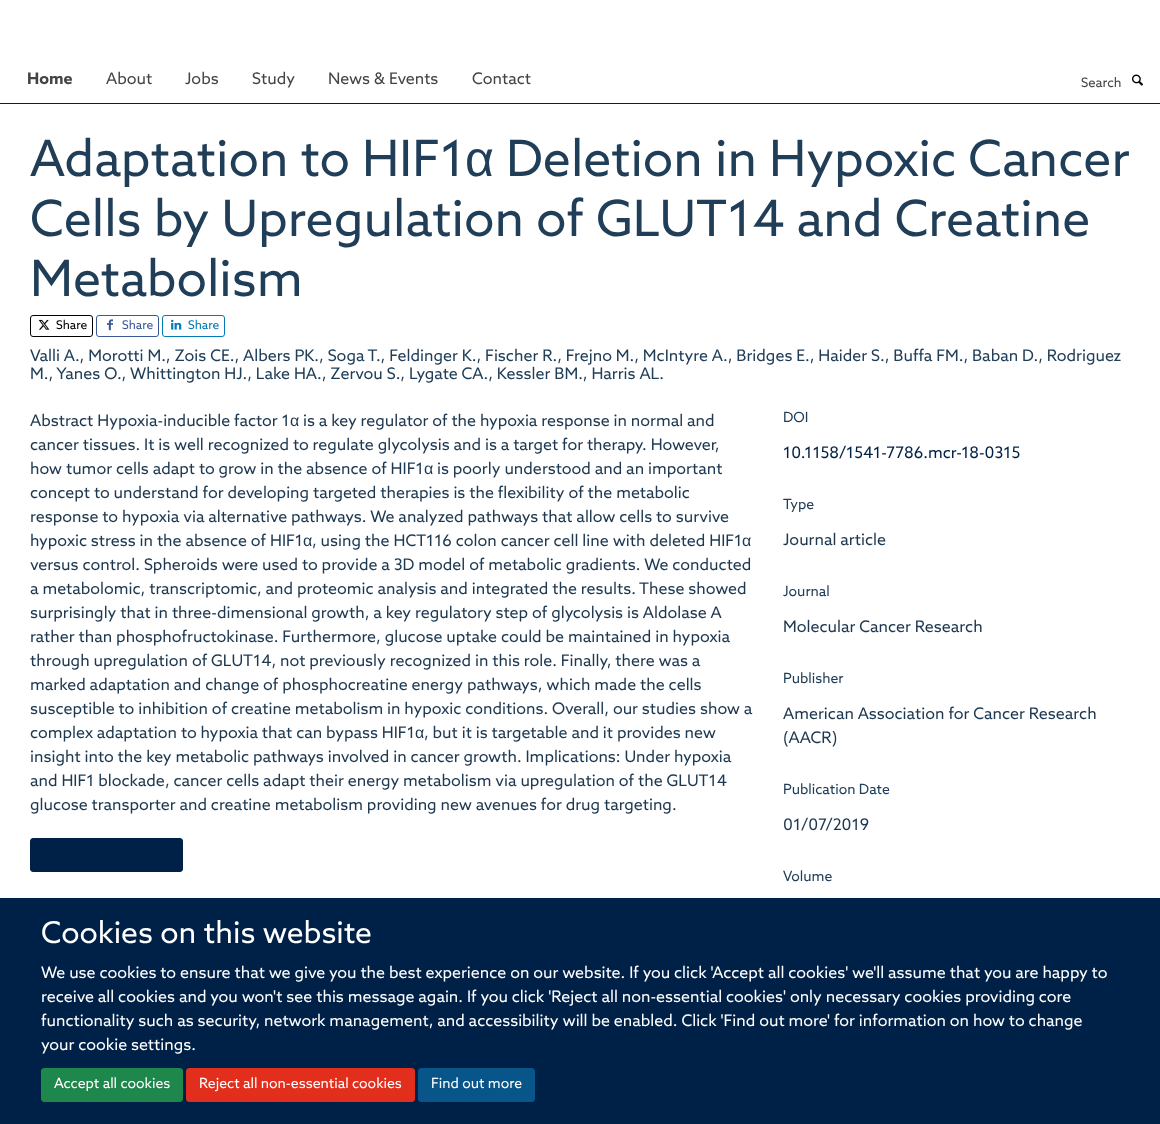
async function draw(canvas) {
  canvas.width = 1160;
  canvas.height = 1124;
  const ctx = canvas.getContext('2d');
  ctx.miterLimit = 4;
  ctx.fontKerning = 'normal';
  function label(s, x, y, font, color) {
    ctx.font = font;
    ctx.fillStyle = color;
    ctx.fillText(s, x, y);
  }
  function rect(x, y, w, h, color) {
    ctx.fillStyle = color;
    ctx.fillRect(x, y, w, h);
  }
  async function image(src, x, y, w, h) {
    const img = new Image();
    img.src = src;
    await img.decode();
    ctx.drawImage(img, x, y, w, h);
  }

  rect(0, 0, 1160, 1124, '#fff');
  rect(0, 103, 1160, 1, '#002147');
  label('Home', 27, 84, 'bold 16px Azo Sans', '#444');
  label('About', 106, 84, '16px Azo Sans', '#444');
  label('Jobs', 185, 84, '16px Azo Sans', '#444');
  label('Study', 252, 84, '16px Azo Sans', '#444');
  label('News & Events', 328, 84, '16px Azo Sans', '#444');
  label('Contact', 472, 84, '16px Azo Sans', '#444');
  label('Search', 1081, 87, '13px Azo Sans', '#444');
  await image('assets/img1.png', 1132, 74, 11, 12);
  label('Adaptation to HIF1', 30, 176, '50px Azo Sans', '#203e58');
  label('α', 465, 176, '50px Liberation Sans', '#203e58');
  label('Deletion in Hypoxic Cancer', 506, 176, '50px Azo Sans', '#203e58');
  label('Cells by Upregulation of GLUT14 and Creatine', 30, 236, '50px Azo Sans', '#203e58');
  label('Metabolism', 30, 296, '50px Azo Sans', '#203e58');
  ctx.beginPath();
  ctx.roundRect(30.5, 315.5, 62, 21, 2.5);
  ctx.strokeStyle = '#000';
  ctx.stroke();
  await image('assets/img2.png', 38, 319, 12, 11);
  label('Share', 56, 329, '12px Azo Sans', '#000');
  ctx.beginPath();
  ctx.roundRect(96.5, 315.5, 62, 21, 2.5);
  ctx.strokeStyle = '#3b5998';
  ctx.stroke();
  await image('assets/img3.png', 107, 319, 6, 12);
  label('Share', 122, 329, '12px Azo Sans', '#3b5998');
  ctx.beginPath();
  ctx.roundRect(162.5, 315.5, 62, 21, 2.5);
  ctx.strokeStyle = '#007bb6';
  ctx.stroke();
  await image('assets/img4.png', 171, 319, 11, 11);
  label('Share', 188, 329, '12px Azo Sans', '#007bb6');
  label('Valli A., Morotti M., Zois CE., Albers PK., Soga T., Feldinger K., Fischer R., Frejno M., McIntyre A., Bridges E., Haider S., Buffa FM., Baban D., Rodriguez', 30, 361, '16px Azo Sans', '#203e58');
  label('M., Yanes O., Whittington HJ., Lake HA., Zervou S., Lygate CA., Kessler BM., Harris AL.', 30, 379, '16px Azo Sans', '#203e58');
  label('Abstract Hypoxia-inducible factor 1', 30, 426, '16px Azo Sans', '#1d3850');
  label('α', 290, 426, '16px Liberation Sans', '#1d3850');
  label('is a key regulator of the hypoxia response in normal and', 303, 426, '16px Azo Sans', '#1d3850');
  label('cancer tissues. It is well recognized to regulate glycolysis and is a target for therapy. However,', 30, 450, '16px Azo Sans', '#1d3850');
  label('how tumor cells adapt to grow in the absence of HIF1', 30, 474, '16px Azo Sans', '#1d3850');
  label('α', 424, 474, '16px Liberation Sans', '#1d3850');
  label('is poorly understood and an important', 437, 474, '16px Azo Sans', '#1d3850');
  label('concept to understand for developing targeted therapies is the flexibility of the metabolic', 30, 498, '16px Azo Sans', '#1d3850');
  label('response to hypoxia via alternative pathways. We analyzed pathways that allow cells to survive', 30, 522, '16px Azo Sans', '#1d3850');
  label('hypoxic stress in the absence of HIF1', 30, 546, '16px Azo Sans', '#1d3850');
  label('α', 303, 546, '16px Liberation Sans', '#1d3850');
  label(', using the HCT116 colon cancer cell line with deleted HIF1', 312, 546, '16px Azo Sans', '#1d3850');
  label('α', 742, 546, '16px Liberation Sans', '#1d3850');
  label('versus control. Spheroids were used to provide a 3D model of metabolic gradients. We conducted', 30, 570, '16px Azo Sans', '#1d3850');
  label('a metabolomic, transcriptomic, and proteomic analysis and integrated the results. These showed', 30, 594, '16px Azo Sans', '#1d3850');
  label('surprisingly that in three-dimensional growth, a key regulatory step of glycolysis is Aldolase A', 30, 618, '16px Azo Sans', '#1d3850');
  label('rather than phosphofructokinase. Furthermore, glucose uptake could be maintained in hypoxia', 30, 642, '16px Azo Sans', '#1d3850');
  label('through upregulation of GLUT14, not previously recognized in this role. Finally, there was a', 30, 666, '16px Azo Sans', '#1d3850');
  label('marked adaptation and change of phosphocreatine energy pathways, which made the cells', 30, 690, '16px Azo Sans', '#1d3850');
  label('susceptible to inhibition of creatine metabolism in hypoxic conditions. Overall, our studies show a', 30, 714, '16px Azo Sans', '#1d3850');
  label('complex adaptation to hypoxia that can bypass HIF1', 30, 738, '16px Azo Sans', '#1d3850');
  label('α', 415, 738, '16px Liberation Sans', '#1d3850');
  label(', but it is targetable and it provides new', 424, 738, '16px Azo Sans', '#1d3850');
  label('insight into the key metabolic pathways involved in cancer growth. Implications: Under hypoxia', 30, 762, '16px Azo Sans', '#1d3850');
  label('and HIF1 blockade, cancer cells adapt their energy metabolism via upregulation of the GLUT14', 30, 786, '16px Azo Sans', '#1d3850');
  label('glucose transporter and creatine metabolism providing new avenues for drug targeting.', 30, 810, '16px Azo Sans', '#1d3850');
  ctx.fillStyle = '#002147';
  ctx.beginPath();
  ctx.roundRect(30.5, 838.5, 152, 33, 2.5);
  ctx.fill();
  ctx.strokeStyle = '#002147';
  ctx.stroke();
  label('DOI', 783, 422, '14px Azo Sans', '#203e58');
  label('10.1158/1541-7786.mcr-18-0315', 783, 458, '16px Azo Sans', '#002147');
  label('Type', 783, 509, '14px Azo Sans', '#203e58');
  label('Journal article', 783, 545, '16px Azo Sans', '#1d3850');
  label('Journal', 783, 596, '14px Azo Sans', '#203e58');
  label('Molecular Cancer Research', 783, 632, '16px Azo Sans', '#1d3850');
  label('Publisher', 783, 683, '14px Azo Sans', '#203e58');
  label('American Association for Cancer Research', 783, 719, '16px Azo Sans', '#1d3850');
  label('(AACR)', 783, 743, '16px Azo Sans', '#1d3850');
  label('Publication Date', 783, 794, '14px Azo Sans', '#203e58');
  label('01/07/2019', 783, 830, '16px Azo Sans', '#1d3850');
  label('Volume', 783, 881, '14px Azo Sans', '#203e58');
  rect(0, 898, 1160, 226, '#002147');
  label('Cookies on this website', 41, 943, '30px Azo Sans', '#fff');
  label('We use cookies to ensure that we give you the best experience on our website. If you click \'Accept all cookies\' we\'ll assume that you are happy to', 41, 978, '16px Azo Sans', '#fff');
  label('receive all cookies and you won\'t see this message again. If you click \'Reject all non-essential cookies\' only necessary cookies providing core', 41, 1002, '16px Azo Sans', '#fff');
  label('functionality such as security, network management, and accessibility will be enabled. Click \'Find out more\' for information on how to change', 41, 1026, '16px Azo Sans', '#fff');
  label('your cookie settings.', 41, 1050, '16px Azo Sans', '#fff');
  ctx.fillStyle = '#1e874b';
  ctx.beginPath();
  ctx.roundRect(41.5, 1068.5, 141, 33, 2.5);
  ctx.fill();
  ctx.strokeStyle = '#1e874b';
  ctx.stroke();
  label('Accept all cookies', 54, 1088, '14px Azo Sans', '#fff');
  ctx.fillStyle = '#e22e1c';
  ctx.beginPath();
  ctx.roundRect(186.5, 1068.5, 228, 33, 2.5);
  ctx.fill();
  ctx.strokeStyle = '#e22e1c';
  ctx.stroke();
  label('Reject all non-essential cookies', 199, 1088, '14px Azo Sans', '#fff');
  ctx.fillStyle = '#085589';
  ctx.beginPath();
  ctx.roundRect(418.5, 1068.5, 116, 33, 2.5);
  ctx.fill();
  ctx.strokeStyle = '#085589';
  ctx.stroke();
  label('Find out more', 431, 1088, '14px Azo Sans', '#fff');
}

draw(document.querySelector('canvas'));
